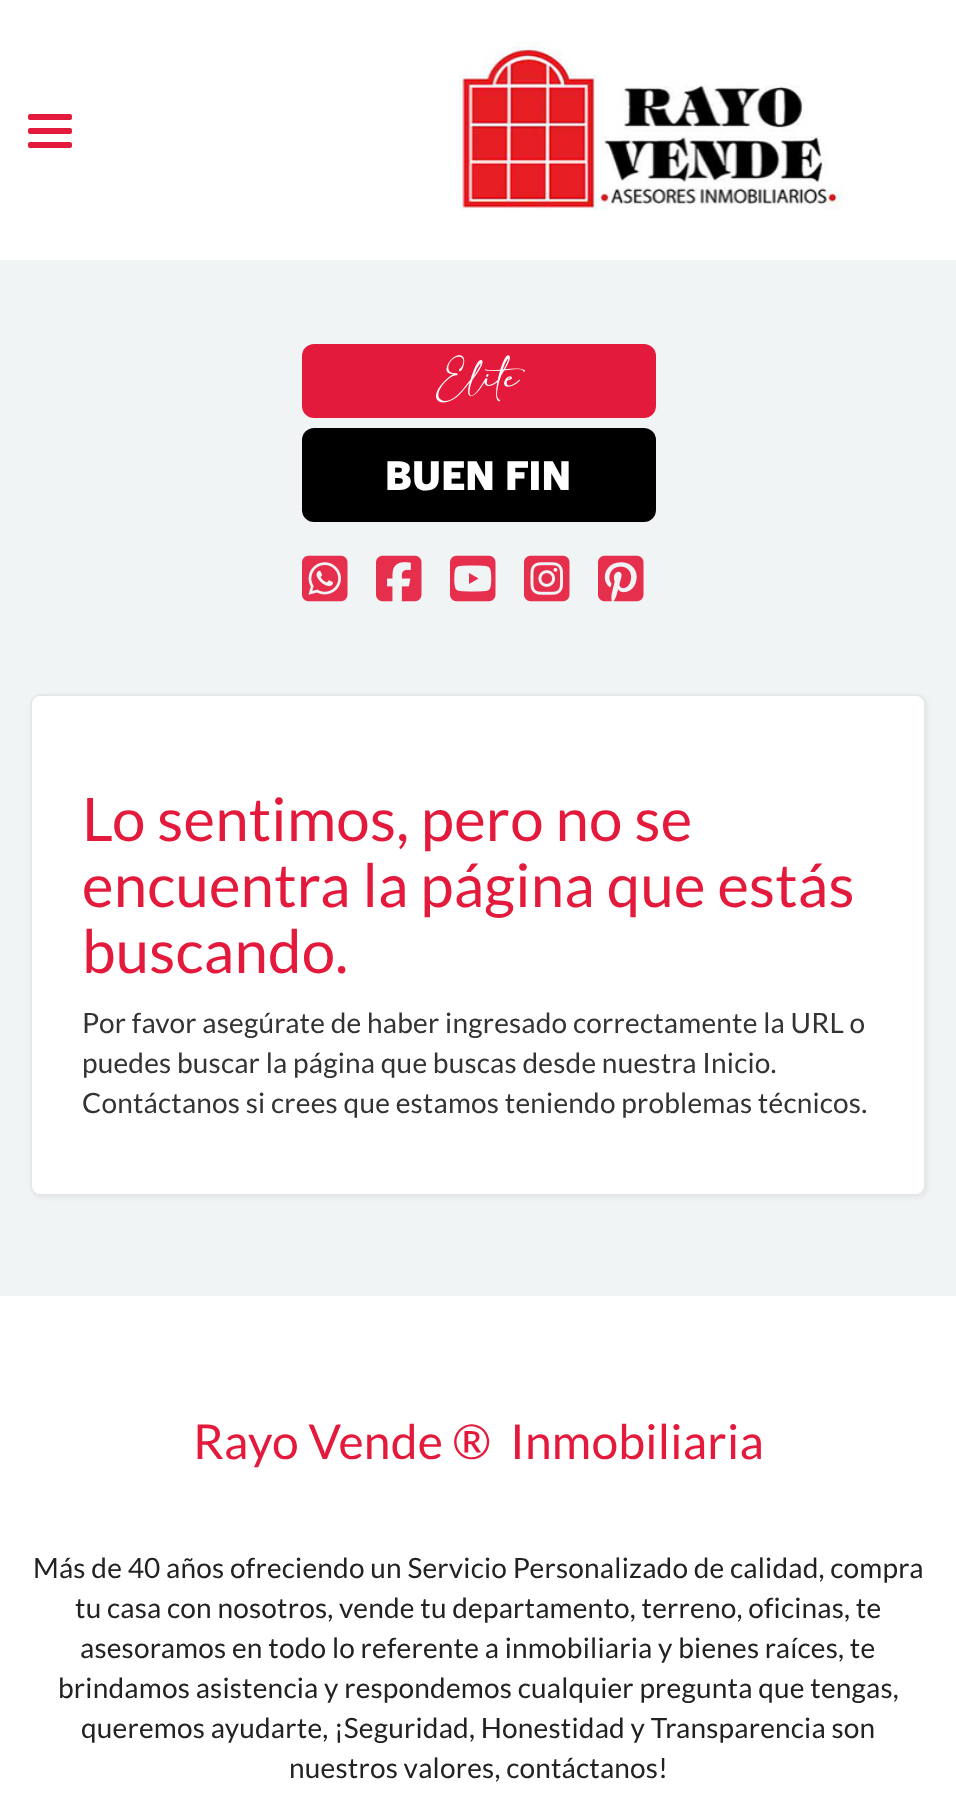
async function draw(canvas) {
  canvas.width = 956;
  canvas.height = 1797;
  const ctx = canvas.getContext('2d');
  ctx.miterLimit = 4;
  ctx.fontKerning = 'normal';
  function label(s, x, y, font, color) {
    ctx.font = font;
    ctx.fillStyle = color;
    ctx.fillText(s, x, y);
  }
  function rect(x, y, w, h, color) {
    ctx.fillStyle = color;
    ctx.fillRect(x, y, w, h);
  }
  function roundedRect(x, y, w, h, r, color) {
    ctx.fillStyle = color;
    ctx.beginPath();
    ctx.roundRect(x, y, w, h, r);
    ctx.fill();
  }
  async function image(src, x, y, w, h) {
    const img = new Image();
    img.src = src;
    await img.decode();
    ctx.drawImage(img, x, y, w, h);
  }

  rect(0, 0, 956, 1797, '#f1f4f5');
  rect(0, 0, 956, 260, '#fff');
  roundedRect(28, 114, 44, 6, 2, '#e31a3b');
  roundedRect(28, 128, 44, 6, 2, '#e31a3b');
  roundedRect(28, 142, 44, 6, 2, '#e31a3b');
  await image('assets/img1.png', 459, 41, 385, 169);
  roundedRect(302, 344, 354, 74, 12, '#e31a3b');
  await image('assets/img2.png', 436, 355, 90, 48);
  roundedRect(302, 428, 354, 94, 12, '#000');
  ctx.letterSpacing = '0.2px';
  label('BUEN FIN', 385, 490, '800 40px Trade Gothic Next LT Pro', '#fff');
  await image('assets/img3.png', 302, 555, 46, 47);
  await image('assets/img4.png', 376, 555, 46, 47);
  await image('assets/img5.png', 450, 555, 46, 47);
  await image('assets/img6.png', 524, 555, 46, 47);
  await image('assets/img7.png', 598, 555, 46, 47);
  ctx.fillStyle = '#0000000d';
  ctx.filter = 'blur(2px)';
  ctx.beginPath();
  ctx.roundRect(32, 696, 896, 502, 10);
  ctx.fill();
  ctx.filter = 'none';
  ctx.fillStyle = '#fff';
  ctx.beginPath();
  ctx.roundRect(31, 695, 894, 500, 9);
  ctx.fill();
  ctx.strokeStyle = '#e4e8eb';
  ctx.lineWidth = 2;
  ctx.stroke();
  label('Lo sentimos, pero no se', 82, 841, '60px Lato', '#e31a3b');
  label('encuentra la página que estás', 82, 907, '60px Lato', '#e31a3b');
  label('buscando.', 82, 973, '60px Lato', '#e31a3b');
  label('Por favor asegúrate de haber ingresado correctamente la URL o', 82, 1033, '28px Lato', '#333');
  label('puedes buscar la página que buscas desde nuestra Inicio.', 82, 1073, '28px Lato', '#333');
  label('Contáctanos si crees que estamos teniendo problemas técnicos.', 82, 1113, '28px Lato', '#333');
  rect(0, 1296, 956, 501, '#fff');
  label('Rayo Vende ®', 193, 1459, '48px Lato', '#e31a3b');
  label('Inmobiliaria', 510, 1459, '48px Lato', '#e31a3b');
  label('Más de 40 años ofreciendo un Servicio Personalizado de calidad, compra', 33, 1578, '28px Lato', '#222');
  label('tu casa con nosotros, vende tu departamento, terreno, oficinas, te', 75, 1618, '28px Lato', '#222');
  label('asesoramos en todo lo referente a inmobiliaria y bienes raíces, te', 80, 1658, '28px Lato', '#222');
  label('brindamos asistencia y respondemos cualquier pregunta que tengas,', 58, 1698, '28px Lato', '#222');
  label('queremos ayudarte, ¡Seguridad, Honestidad y Transparencia son', 81, 1738, '28px Lato', '#222');
  label('nuestros valores, contáctanos!', 289, 1778, '28px Lato', '#222');
}

draw(document.querySelector('canvas'));
